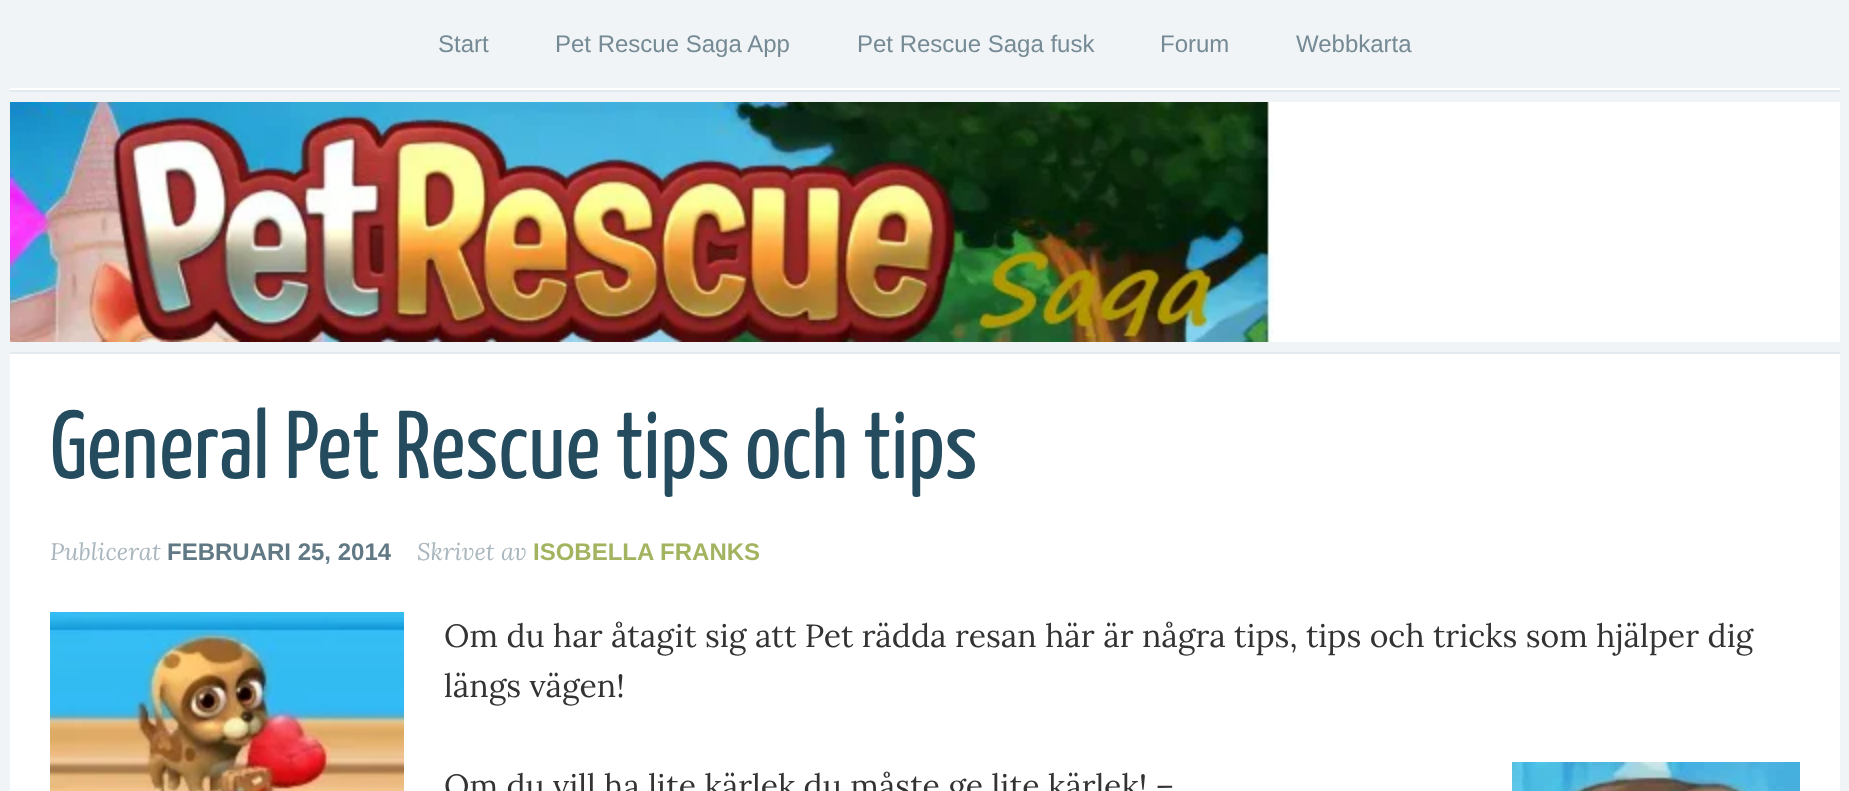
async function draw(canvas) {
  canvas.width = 1849;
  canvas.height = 791;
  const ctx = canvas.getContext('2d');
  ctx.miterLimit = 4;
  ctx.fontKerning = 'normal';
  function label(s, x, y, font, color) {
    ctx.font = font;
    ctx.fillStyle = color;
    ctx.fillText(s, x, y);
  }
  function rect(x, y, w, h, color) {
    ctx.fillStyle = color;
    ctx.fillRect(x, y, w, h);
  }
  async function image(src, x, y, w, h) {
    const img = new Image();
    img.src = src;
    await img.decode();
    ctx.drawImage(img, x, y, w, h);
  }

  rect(0, 0, 1849, 791, '#fff');
  rect(1840, 0, 9, 791, '#f0f4f6');
  rect(0, 0, 10, 791, '#f0f4f6');
  rect(10, 90, 1830, 2, '#e3eaee');
  rect(10, 0, 1830, 88, '#f0f4f6');
  label('Start', 438, 52, '24px Liberation Sans', '#758a94');
  label('Pet Rescue Saga App', 555, 52, '24px Liberation Sans', '#758a94');
  label('Pet Rescue Saga fusk', 857, 52, '24px Liberation Sans', '#758a94');
  label('Forum', 1160, 52, '24px Liberation Sans', '#758a94');
  label('Webbkarta', 1296, 52, '24px Liberation Sans', '#758a94');
  await image('assets/img1.png', 10, 102, 1264, 240);
  rect(10, 92, 1830, 10, '#f0f4f6');
  rect(10, 352, 1830, 2, '#e3eaee');
  rect(10, 342, 1830, 10, '#f0f4f6');
  label('General Pet Rescue tips och tips', 50, 478, '96px Yanone Kaffeesatz', '#244c5e');
  label('Publicerat', 50, 560, 'italic 24px Lora', '#aab7be');
  label('FEBRUARI 25, 2014', 167, 560, 'bold 24px Liberation Sans', '#617984');
  label('Skrivet av', 417, 560, 'italic 24px Lora', '#aab7be');
  label('ISOBELLA FRANKS', 533, 560, 'bold 24px Liberation Sans', '#a3b460');
  await image('assets/img2.png', 50, 612, 354, 179);
  label('Om du har åtagit sig att Pet rädda resan här är några tips, tips och tricks som hjälper dig', 444, 647, '32px Lora', '#333');
  label('längs vägen!', 444, 697, '32px Lora', '#333');
  label('Om du vill ha lite kärlek du måste ge lite kärlek! –', 444, 797, '32px Lora', '#333');
  await image('assets/img3.png', 1512, 762, 288, 29);
}

draw(document.querySelector('canvas'));
